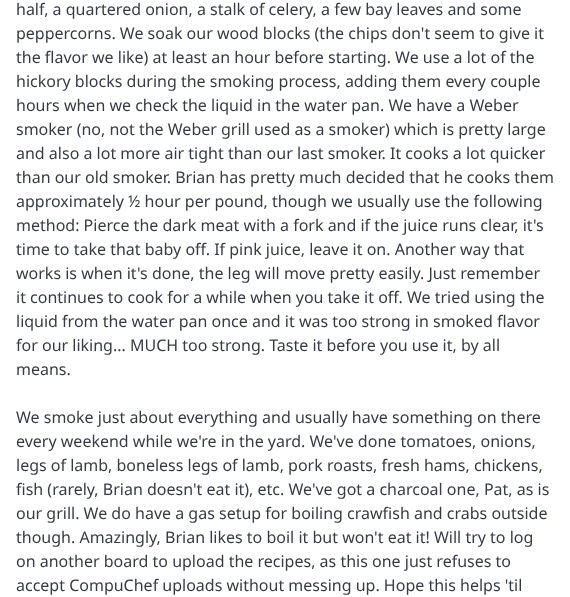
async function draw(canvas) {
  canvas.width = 570;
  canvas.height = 597;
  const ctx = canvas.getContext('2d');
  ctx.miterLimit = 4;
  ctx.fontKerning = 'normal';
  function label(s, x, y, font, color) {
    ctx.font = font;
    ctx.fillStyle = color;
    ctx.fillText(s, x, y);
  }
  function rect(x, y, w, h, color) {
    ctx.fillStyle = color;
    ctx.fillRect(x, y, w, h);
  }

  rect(0, 0, 570, 597, '#fff');
  label('half, a quartered onion, a stalk of celery, a few bay leaves and some', 16, 15, '16px Noto Sans', '#373c44');
  label('peppercorns. We soak our wood blocks (the chips don\'t seem to give it', 16, 39, '16px Noto Sans', '#373c44');
  label('the flavor we like) at least an hour before starting. We use a lot of the', 16, 63, '16px Noto Sans', '#373c44');
  label('hickory blocks during the smoking process, adding them every couple', 16, 87, '16px Noto Sans', '#373c44');
  label('hours when we check the liquid in the water pan. We have a Weber', 16, 111, '16px Noto Sans', '#373c44');
  label('smoker (no, not the Weber grill used as a smoker) which is pretty large', 16, 135, '16px Noto Sans', '#373c44');
  label('and also a lot more air tight than our last smoker. It cooks a lot quicker', 16, 159, '16px Noto Sans', '#373c44');
  label('than our old smoker. Brian has pretty much decided that he cooks them', 16, 183, '16px Noto Sans', '#373c44');
  label('approximately ½ hour per pound, though we usually use the following', 16, 207, '16px Noto Sans', '#373c44');
  label('method: Pierce the dark meat with a fork and if the juice runs clear, it\'s', 16, 231, '16px Noto Sans', '#373c44');
  label('time to take that baby off. If pink juice, leave it on. Another way that', 16, 255, '16px Noto Sans', '#373c44');
  label('works is when it\'s done, the leg will move pretty easily. Just remember', 16, 279, '16px Noto Sans', '#373c44');
  label('it continues to cook for a while when you take it off. We tried using the', 16, 303, '16px Noto Sans', '#373c44');
  label('liquid from the water pan once and it was too strong in smoked flavor', 16, 327, '16px Noto Sans', '#373c44');
  label('for our liking... MUCH too strong. Taste it before you use it, by all', 16, 351, '16px Noto Sans', '#373c44');
  label('means.', 16, 375, '16px Noto Sans', '#373c44');
  label('We smoke just about everything and usually have something on there', 16, 423, '16px Noto Sans', '#373c44');
  label('every weekend while we\'re in the yard. We\'ve done tomatoes, onions,', 16, 447, '16px Noto Sans', '#373c44');
  label('legs of lamb, boneless legs of lamb, pork roasts, fresh hams, chickens,', 16, 471, '16px Noto Sans', '#373c44');
  label('fish (rarely, Brian doesn\'t eat it), etc. We\'ve got a charcoal one, Pat, as is', 16, 495, '16px Noto Sans', '#373c44');
  label('our grill. We do have a gas setup for boiling crawfish and crabs outside', 16, 519, '16px Noto Sans', '#373c44');
  label('though. Amazingly, Brian likes to boil it but won\'t eat it! Will try to log', 16, 543, '16px Noto Sans', '#373c44');
  label('on another board to upload the recipes, as this one just refuses to', 16, 567, '16px Noto Sans', '#373c44');
  label('accept CompuChef uploads without messing up. Hope this helps \'til', 16, 591, '16px Noto Sans', '#373c44');
}

draw(document.querySelector('canvas'));
